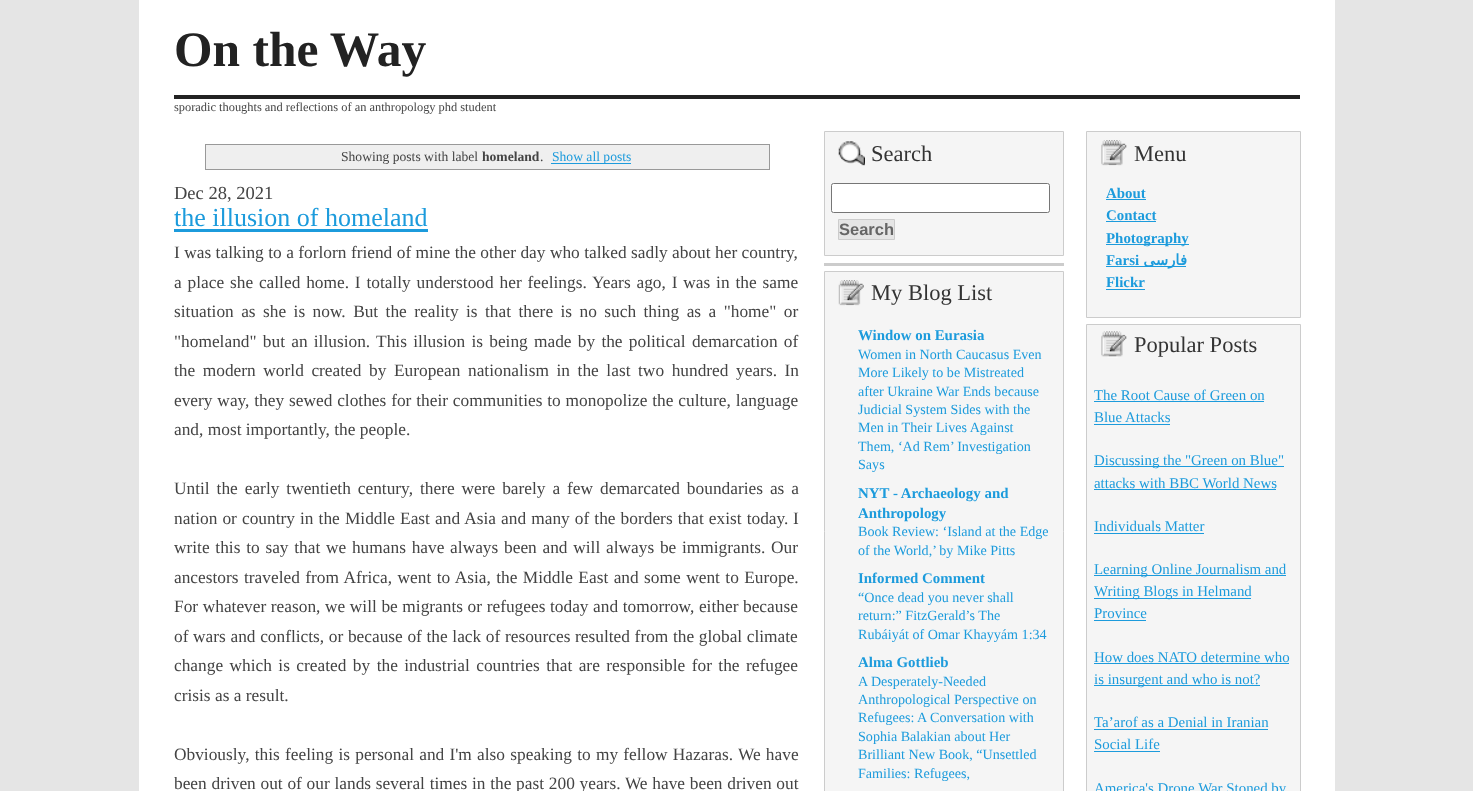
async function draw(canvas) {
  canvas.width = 1473;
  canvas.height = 791;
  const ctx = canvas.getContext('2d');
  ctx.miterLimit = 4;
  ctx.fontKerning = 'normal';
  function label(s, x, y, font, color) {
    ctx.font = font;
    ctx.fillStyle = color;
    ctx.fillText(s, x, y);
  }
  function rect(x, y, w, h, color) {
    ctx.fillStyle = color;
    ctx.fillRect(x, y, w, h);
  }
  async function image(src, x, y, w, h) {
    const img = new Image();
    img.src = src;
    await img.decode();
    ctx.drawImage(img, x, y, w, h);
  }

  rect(0, 0, 1473, 791, '#e5e5e5');
  rect(139, 0, 1196, 791, '#fff');
  rect(174, 95, 1126, 4, '#222');
  label('On the Way', 174, 66, 'bold 49.5px Liberation Serif', '#222');
  label('sporadic thoughts and reflections of an anthropology phd student', 174, 111, '12.4px Liberation Serif', '#444');
  ctx.strokeStyle = '#999';
  ctx.strokeRect(205.5, 144.5, 564, 25);
  rect(206, 145, 563, 24, '#efefef');
  label('Showing posts with label', 341, 161, '13.6px Liberation Serif', '#444');
  label('homeland', 482, 161, 'bold 13.6px Liberation Serif', '#444');
  label('.', 540, 161, '13.6px Liberation Serif', '#444');
  rect(551, 163, 80, 1, '#1c9bdc');
  label('Show all posts', 552, 161, '13.6px Liberation Serif', '#1c9bdc');
  label('Dec 28, 2021', 174, 199, '18.5px Liberation Serif', '#444');
  label('the illusion of homeland', 174, 226, '26px Liberation Serif', '#1c9bdc');
  rect(174, 229, 254, 3, '#1c9bdc');
  ctx.wordSpacing = '0.1px';
  label('I was talking to a forlorn friend of mine the other day who talked sadly about her country,', 174, 258, '17.35px Liberation Serif', '#444');
  ctx.wordSpacing = '1.5px';
  label('a place she called home. I totally understood her feelings. Years ago, I was in the same', 174, 288, '17.35px Liberation Serif', '#444');
  ctx.wordSpacing = '3.1px';
  label('situation as she is now. But the reality is that there is no such thing as a "home" or', 174, 317, '17.35px Liberation Serif', '#444');
  ctx.wordSpacing = '1.9px';
  label('"homeland" but an illusion. This illusion is being made by the political demarcation of', 174, 347, '17.35px Liberation Serif', '#444');
  ctx.wordSpacing = '3.25px';
  label('the modern world created by European nationalism in the last two hundred years. In', 174, 376, '17.35px Liberation Serif', '#444');
  ctx.wordSpacing = '0.5px';
  label('every way, they sewed clothes for their communities to monopolize the culture, language', 174, 406, '17.35px Liberation Serif', '#444');
  ctx.wordSpacing = '0px';
  label('and, most importantly, the people.', 174, 435, '17.35px Liberation Serif', '#444');
  ctx.wordSpacing = '2.6px';
  label('Until the early twentieth century, there were barely a few demarcated boundaries as a', 174, 494, '17.35px Liberation Serif', '#444');
  ctx.wordSpacing = '0.75px';
  label('nation or country in the Middle East and Asia and many of the borders that exist today.', 174, 524, '17.35px Liberation Serif', '#444');
  ctx.wordSpacing = '0px';
  label('I', 793, 524, '17.35px Liberation Serif', '#444');
  ctx.wordSpacing = '1.4px';
  label('write this to say that we humans have always been and will always be immigrants. Our', 174, 553, '17.35px Liberation Serif', '#444');
  ctx.wordSpacing = '1.1px';
  label('ancestors traveled from Africa, went to Asia, the Middle East and some went to Europe.', 174, 583, '17.35px Liberation Serif', '#444');
  ctx.wordSpacing = '0.25px';
  label('For whatever reason, we will be migrants or refugees today and tomorrow, either because', 174, 612, '17.35px Liberation Serif', '#444');
  ctx.wordSpacing = '0.3px';
  label('of wars and conflicts, or because of the lack of resources resulted from the global climate', 174, 642, '17.35px Liberation Serif', '#444');
  ctx.wordSpacing = '2.1px';
  label('change which is created by the industrial countries that are responsible for the refugee', 174, 671, '17.35px Liberation Serif', '#444');
  ctx.wordSpacing = '0px';
  label('crisis as a result.', 174, 701, '17.35px Liberation Serif', '#444');
  ctx.wordSpacing = '0.9px';
  label('Obviously, this feeling is personal and I\'m also speaking to my fellow Hazaras. We have', 174, 760, '17.35px Liberation Serif', '#444');
  ctx.wordSpacing = '0.4px';
  label('been driven out of our lands several times in the past 200 years. We have been driven out', 174, 789, '17.35px Liberation Serif', '#444');
  ctx.fillStyle = '#f5f5f5';
  ctx.beginPath();
  ctx.rect(824.5, 131.5, 239, 124);
  ctx.fill();
  ctx.strokeStyle = '#ccc';
  ctx.stroke();
  await image('assets/img1.png', 838, 141, 27, 25);
  ctx.wordSpacing = '0px';
  label('Search', 871, 161, '22.5px Liberation Serif', '#333');
  ctx.fillStyle = '#fff';
  ctx.beginPath();
  ctx.roundRect(831.5, 183.5, 218, 29, 2);
  ctx.fill();
  ctx.strokeStyle = '#767676';
  ctx.stroke();
  ctx.fillStyle = '#e5e5e5';
  ctx.beginPath();
  ctx.rect(838.5, 219.5, 56, 20);
  ctx.fill();
  ctx.strokeStyle = '#ccc';
  ctx.stroke();
  label('Search', 839, 235, 'bold 16.5px Liberation Sans', '#666');
  rect(824, 263, 240, 3, '#ccc');
  ctx.fillStyle = '#f5f5f5';
  ctx.beginPath();
  ctx.rect(824.5, 271.5, 239, 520);
  ctx.fill();
  ctx.stroke();
  await image('assets/img2.png', 838, 280, 26, 26);
  label('My Blog List', 871, 300, '22.5px Liberation Serif', '#333');
  label('Window on Eurasia', 858, 340, 'bold 14.9px Liberation Serif', '#1c9bdc');
  label('Women in North Caucasus Even', 858, 359, '14.1px Liberation Serif', '#1c9bdc');
  label('More Likely to be Mistreated', 858, 377, '14.1px Liberation Serif', '#1c9bdc');
  label('after Ukraine War Ends because', 858, 396, '14.1px Liberation Serif', '#1c9bdc');
  label('Judicial System Sides with the', 858, 414, '14.1px Liberation Serif', '#1c9bdc');
  label('Men in Their Lives Against', 858, 432, '14.1px Liberation Serif', '#1c9bdc');
  label('Them, ‘Ad Rem’ Investigation', 858, 451, '14.1px Liberation Serif', '#1c9bdc');
  label('Says', 858, 469, '14.1px Liberation Serif', '#1c9bdc');
  label('NYT - Archaeology and', 858, 498, 'bold 14.9px Liberation Serif', '#1c9bdc');
  label('Anthropology', 858, 518, 'bold 14.9px Liberation Serif', '#1c9bdc');
  label('Book Review: ‘Island at the Edge', 858, 536, '14.1px Liberation Serif', '#1c9bdc');
  label('of the World,’ by Mike Pitts', 858, 555, '14.1px Liberation Serif', '#1c9bdc');
  label('Informed Comment', 858, 583, 'bold 14.9px Liberation Serif', '#1c9bdc');
  label('“Once dead you never shall', 858, 602, '14.1px Liberation Serif', '#1c9bdc');
  label('return:” FitzGerald’s The', 858, 620, '14.1px Liberation Serif', '#1c9bdc');
  label('Rubáiyát of Omar Khayyám 1:34', 858, 639, '14.1px Liberation Serif', '#1c9bdc');
  label('Alma Gottlieb', 858, 667, 'bold 14.9px Liberation Serif', '#1c9bdc');
  label('A Desperately-Needed', 858, 686, '14.1px Liberation Serif', '#1c9bdc');
  label('Anthropological Perspective on', 858, 704, '14.1px Liberation Serif', '#1c9bdc');
  label('Refugees: A Conversation with', 858, 722, '14.1px Liberation Serif', '#1c9bdc');
  label('Sophia Balakian about Her', 858, 741, '14.1px Liberation Serif', '#1c9bdc');
  label('Brilliant New Book, “Unsettled', 858, 759, '14.1px Liberation Serif', '#1c9bdc');
  label('Families: Refugees,', 858, 778, '14.1px Liberation Serif', '#1c9bdc');
  ctx.fillStyle = '#f5f5f5';
  ctx.beginPath();
  ctx.rect(1086.5, 131.5, 214, 186);
  ctx.fill();
  ctx.stroke();
  await image('assets/img3.png', 1101, 140, 26, 26);
  label('Menu', 1134, 161, '22.5px Liberation Serif', '#333');
  label('About', 1106, 198, 'bold 14.9px Liberation Serif', '#1c9bdc');
  rect(1106, 199, 40, 1, '#1c9bdc');
  label('Contact', 1106, 220, 'bold 14.9px Liberation Serif', '#1c9bdc');
  rect(1106, 221, 50, 1, '#1c9bdc');
  rect(1106, 244, 83, 1, '#1c9bdc');
  label('Photography', 1106, 243, 'bold 14.9px Liberation Serif', '#1c9bdc');
  label('Farsi', 1106, 265, 'bold 14.9px Liberation Serif', '#1c9bdc');
  rect(1106, 266, 80, 1, '#1c9bdc');
  ctx.direction = 'rtl';
  label('فارسی', 1187, 265, 'bold 14.9px DejaVu Sans', '#1c9bdc');
  ctx.direction = 'ltr';
  label('Flickr', 1106, 287, 'bold 14.9px Liberation Serif', '#1c9bdc');
  rect(1106, 289, 39, 1, '#1c9bdc');
  ctx.fillStyle = '#f5f5f5';
  ctx.beginPath();
  ctx.rect(1086.5, 324.5, 214, 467);
  ctx.fill();
  ctx.stroke();
  await image('assets/img4.png', 1101, 331, 26, 27);
  label('Popular Posts', 1134, 352, '22.5px Liberation Serif', '#333');
  label('The Root Cause of Green on', 1094, 400, '14.9px Liberation Serif', '#1c9bdc');
  rect(1094, 401, 170, 1, '#1c9bdc');
  label('Blue Attacks', 1094, 422, '14.9px Liberation Serif', '#1c9bdc');
  rect(1094, 424, 76, 1, '#1c9bdc');
  rect(1094, 466, 190, 1, '#1c9bdc');
  label('Discussing the "Green on Blue"', 1094, 465, '14.9px Liberation Serif', '#1c9bdc');
  label('attacks with BBC World News', 1094, 488, '14.9px Liberation Serif', '#1c9bdc');
  rect(1094, 489, 182, 1, '#1c9bdc');
  label('Individuals Matter', 1094, 531, '14.9px Liberation Serif', '#1c9bdc');
  rect(1094, 533, 110, 1, '#1c9bdc');
  rect(1094, 575, 192, 1, '#1c9bdc');
  label('Learning Online Journalism and', 1094, 574, '14.9px Liberation Serif', '#1c9bdc');
  rect(1094, 598, 157, 1, '#1c9bdc');
  label('Writing Blogs in Helmand', 1094, 596, '14.9px Liberation Serif', '#1c9bdc');
  label('Province', 1094, 618, '14.9px Liberation Serif', '#1c9bdc');
  rect(1094, 620, 52, 1, '#1c9bdc');
  label('How does NATO determine who', 1094, 662, '14.9px Liberation Serif', '#1c9bdc');
  rect(1094, 663, 195, 1, '#1c9bdc');
  rect(1094, 685, 166, 1, '#1c9bdc');
  label('is insurgent and who is not?', 1094, 684, '14.9px Liberation Serif', '#1c9bdc');
  label('Ta’arof as a Denial in Iranian', 1094, 727, '14.9px Liberation Serif', '#1c9bdc');
  rect(1094, 729, 174, 1, '#1c9bdc');
  label('Social Life', 1094, 749, '14.9px Liberation Serif', '#1c9bdc');
  rect(1094, 751, 66, 1, '#1c9bdc');
  label('America\'s Drone War Stoned by', 1094, 793, '14.9px Liberation Serif', '#1c9bdc');
}

draw(document.querySelector('canvas'));
